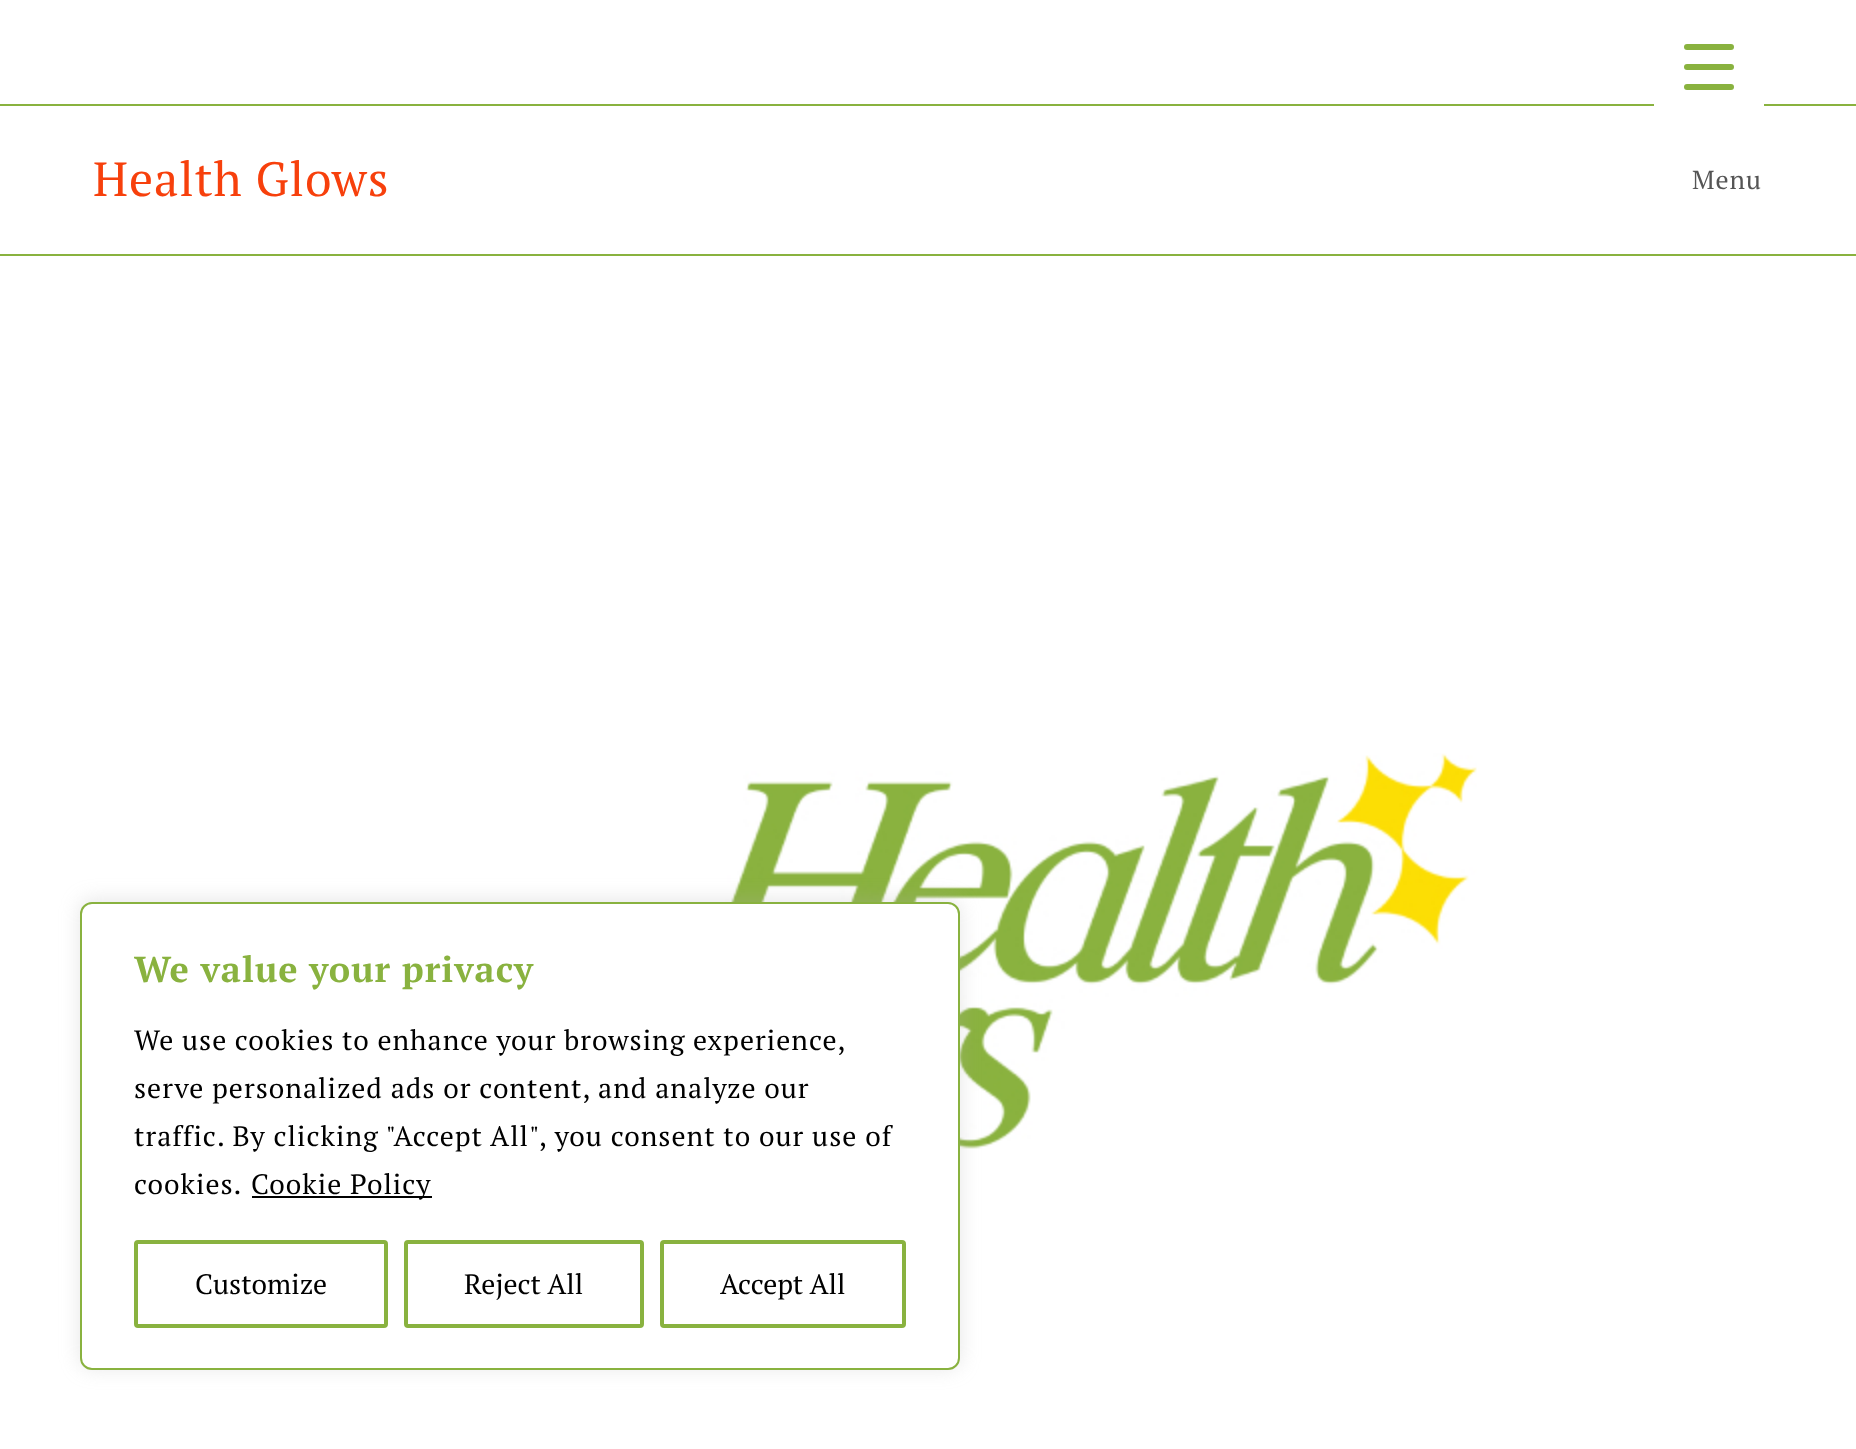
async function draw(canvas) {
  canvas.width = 1856;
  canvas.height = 1449;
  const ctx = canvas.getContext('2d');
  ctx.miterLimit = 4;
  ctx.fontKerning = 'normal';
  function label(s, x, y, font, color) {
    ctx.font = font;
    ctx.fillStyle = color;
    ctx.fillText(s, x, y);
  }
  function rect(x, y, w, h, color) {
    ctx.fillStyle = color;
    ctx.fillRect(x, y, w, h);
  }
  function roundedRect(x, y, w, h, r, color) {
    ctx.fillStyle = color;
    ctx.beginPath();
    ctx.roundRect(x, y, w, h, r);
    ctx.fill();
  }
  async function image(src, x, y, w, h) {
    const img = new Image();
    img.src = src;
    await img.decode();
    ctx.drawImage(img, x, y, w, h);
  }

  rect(0, 0, 1856, 1449, '#fff');
  rect(0, 104, 1856, 2, '#89b23f');
  roundedRect(1654, 10, 110, 110, 10, '#fff');
  roundedRect(1684, 64, 50, 6, 3, '#89b23f');
  roundedRect(1684, 44, 50, 6, 3, '#89b23f');
  roundedRect(1684, 84, 50, 6, 3, '#89b23f');
  rect(0, 254, 1856, 2, '#89b23f');
  ctx.letterSpacing = '1px';
  label('Health Glows', 93, 196, '48px PT Serif', '#f7400c');
  label('Menu', 1692, 189, '26px PT Serif', '#555');
  await image('assets/img1.png', 381, 753, 1096, 396);
  ctx.fillStyle = '#acabab4d';
  ctx.filter = 'blur(10px)';
  ctx.beginPath();
  ctx.roundRect(80, 900, 880, 468, 12);
  ctx.fill();
  ctx.filter = 'none';
  ctx.fillStyle = '#fff';
  ctx.beginPath();
  ctx.roundRect(81, 903, 878, 466, 11);
  ctx.fill();
  ctx.strokeStyle = '#89b23f';
  ctx.lineWidth = 2;
  ctx.stroke();
  label('We value your privacy', 134, 982, 'bold 36px PT Serif', '#89b23f');
  ctx.wordSpacing = '-0.25px';
  label('We use cookies to enhance your browsing experience,', 134, 1050, '28px PT Serif', '#000');
  ctx.wordSpacing = '0px';
  label('serve personalized ads or content, and analyze our', 134, 1098, '28px PT Serif', '#000');
  label('traffic. By clicking "Accept All", you consent to our use of', 134, 1146, '28px PT Serif', '#000');
  label('cookies.', 134, 1194, '28px PT Serif', '#000');
  rect(252, 1196, 180, 2, '#000');
  label('Cookie Policy', 251, 1194, '28px PT Serif', '#000');
  ctx.beginPath();
  ctx.roundRect(136, 1242, 250, 84, 2);
  ctx.lineWidth = 4;
  ctx.stroke();
  ctx.letterSpacing = '0px';
  label('Customize', 195, 1294, '28px PT Serif', '#000');
  ctx.beginPath();
  ctx.roundRect(406, 1242, 236, 84, 2);
  ctx.stroke();
  label('Reject All', 464, 1294, '28px PT Serif', '#000');
  ctx.beginPath();
  ctx.roundRect(662, 1242, 242, 84, 2);
  ctx.stroke();
  label('Accept All', 720, 1294, '28px PT Serif', '#000');
}

draw(document.querySelector('canvas'));
